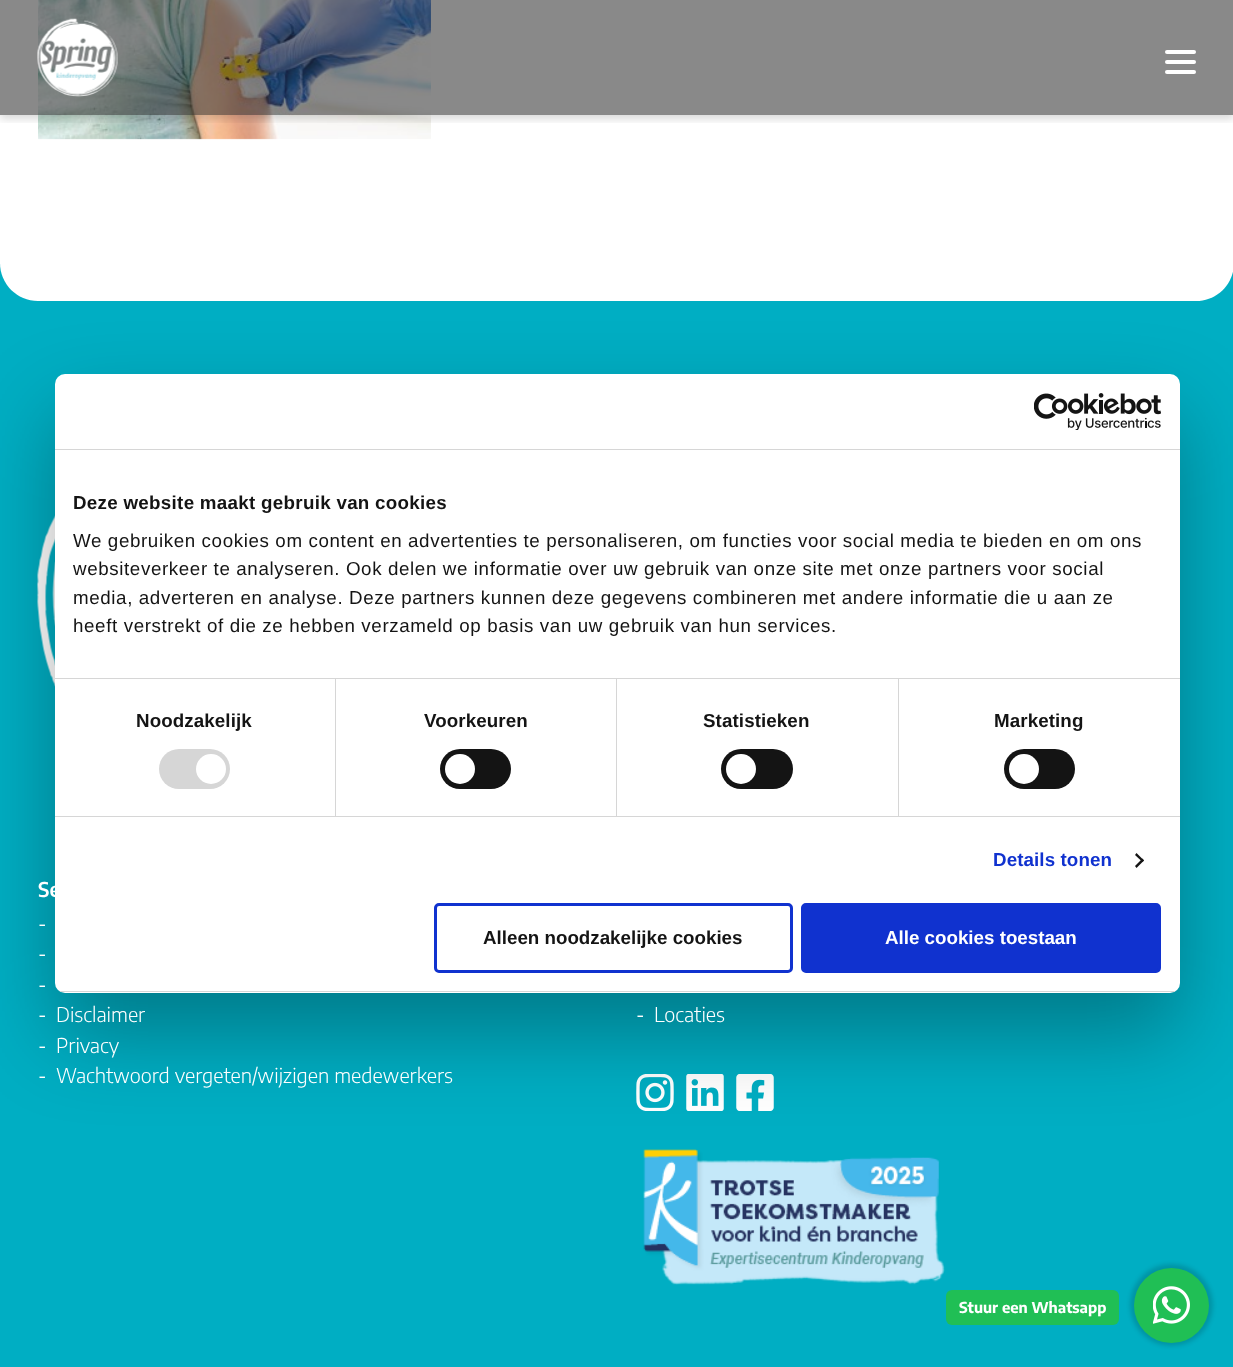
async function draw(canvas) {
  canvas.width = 1233;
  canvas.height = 1367;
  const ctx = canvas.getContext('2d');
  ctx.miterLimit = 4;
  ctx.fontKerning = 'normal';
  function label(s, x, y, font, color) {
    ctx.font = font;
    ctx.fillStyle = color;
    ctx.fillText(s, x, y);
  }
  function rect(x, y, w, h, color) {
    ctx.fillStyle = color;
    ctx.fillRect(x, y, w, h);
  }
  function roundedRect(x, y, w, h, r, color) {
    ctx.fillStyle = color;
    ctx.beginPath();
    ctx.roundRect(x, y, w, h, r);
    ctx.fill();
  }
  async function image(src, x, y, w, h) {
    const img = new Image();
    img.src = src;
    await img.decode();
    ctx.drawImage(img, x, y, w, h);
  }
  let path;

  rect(0, 0, 1233, 1367, '#fff');
  rect(0, 264, 1233, 1103, '#00aec3');
  ctx.fillStyle = '#fff';
  path = new Path2D('M0-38H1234V263C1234 284 1217 301 1196 301H38C17 301 0 284 0 263Z');
  ctx.fill(path);
  await image('assets/img1.png', 38, 0, 393, 140);
  ctx.save();
  ctx.beginPath();
  ctx.rect(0, 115, 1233, 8);
  ctx.clip();
  ctx.fillStyle = '#00000026';
  ctx.filter = 'blur(4px)';
  ctx.beginPath();
  ctx.rect(0, 4, 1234, 115);
  ctx.fill();
  ctx.filter = 'none';
  ctx.restore();
  rect(0, 0, 1233, 115, '#2828288c');
  await image('assets/img2.png', 37, 18, 81, 79);
  roundedRect(1165, 60, 31, 4, 2, '#fff');
  roundedRect(1165, 50, 31, 4, 2, '#fff');
  roundedRect(1165, 70, 31, 4, 2, '#fff');
  await image('assets/img4.png', 37, 515, 18, 172);
  await image('assets/img5.png', 636, 1074, 38, 37);
  await image('assets/img6.png', 686, 1074, 38, 37);
  await image('assets/img7.png', 736, 1074, 38, 37);
  await image('assets/img8.png', 643, 1149, 302, 136);
  ctx.fillStyle = '#0000004d';
  ctx.filter = 'blur(42.5px)';
  ctx.beginPath();
  ctx.roundRect(55, 414, 1125, 619, 10);
  ctx.fill();
  ctx.filter = 'none';
  roundedRect(55, 374, 1125, 619, 10, '#fff');
  rect(55, 449, 1125, 1, '#d6d6d6');
  await image('assets/img3.png', 1034, 393, 127, 37);
  rect(55, 678, 1125, 1, '#d6d6d6');
  ctx.letterSpacing = '0.3px';
  label('Deze website maakt gebruik van cookies', 73, 509, 'bold 18.75px Liberation Sans', '#141414');
  ctx.letterSpacing = '0.62px';
  label('We gebruiken cookies om content en advertenties te personaliseren, om functies voor social media te bieden en om ons', 73, 547, '18.75px Liberation Sans', '#141414');
  label('websiteverkeer te analyseren. Ook delen we informatie over uw gebruik van onze site met onze partners voor social', 73, 575, '18.75px Liberation Sans', '#141414');
  label('media, adverteren en analyse. Deze partners kunnen deze gegevens combineren met andere informatie die u aan ze', 73, 604, '18.75px Liberation Sans', '#141414');
  label('heeft verstrekt of die ze hebben verzameld op basis van uw gebruik van hun services.', 73, 632, '18.75px Liberation Sans', '#141414');
  rect(55, 816, 1125, 1, '#d6d6d6');
  rect(335, 679, 1, 137, '#d6d6d6');
  ctx.letterSpacing = '0.1px';
  label('Noodzakelijk', 136, 727, 'bold 18.75px Liberation Sans', '#141414');
  roundedRect(159, 749, 71, 40, 20, '#d6d6d6');
  ctx.fillStyle = '#fff';
  ctx.beginPath();
  ctx.arc(211, 769, 15, 0, 2 * Math.PI);
  ctx.fill();
  rect(616, 679, 1, 137, '#d6d6d6');
  label('Voorkeuren', 424, 727, 'bold 18.75px Liberation Sans', '#141414');
  roundedRect(440, 749, 71, 40, 20, '#141414');
  ctx.fillStyle = '#fff';
  ctx.beginPath();
  ctx.arc(460, 769, 15, 0, 2 * Math.PI);
  ctx.fill();
  rect(898, 679, 1, 137, '#d6d6d6');
  label('Statistieken', 703, 727, 'bold 18.75px Liberation Sans', '#141414');
  roundedRect(721, 749, 72, 40, 20, '#141414');
  ctx.fillStyle = '#fff';
  ctx.beginPath();
  ctx.arc(741, 769, 15, 0, 2 * Math.PI);
  ctx.fill();
  label('Marketing', 994, 727, 'bold 18.75px Liberation Sans', '#141414');
  roundedRect(1004, 749, 71, 40, 20, '#141414');
  ctx.fillStyle = '#fff';
  ctx.beginPath();
  ctx.arc(1024, 769, 15, 0, 2 * Math.PI);
  ctx.fill();
  label('Details tonen', 993, 866, 'bold 18.75px Liberation Sans', '#1032cf');
  ctx.fillStyle = '#141414';
  path = new Path2D('M1136.5 853L1144 860.5L1142.5 862L1135 855Z');
  ctx.fill(path);
  path = new Path2D('M1142.5 858.5L1144 860.5L1136.5 868L1135 866Z');
  ctx.fill(path);
  ctx.save();
  ctx.beginPath();
  ctx.roundRect(55, 374, 1125, 619, 10);
  ctx.clip();
  rect(55, 991, 1125, 1, '#d6d6d6');
  ctx.restore();
  ctx.beginPath();
  ctx.roundRect(435.5, 904.5, 356, 67, 3.5);
  ctx.strokeStyle = '#1032cf';
  ctx.lineWidth = 3;
  ctx.stroke();
  ctx.letterSpacing = '0px';
  label('Alleen noodzakelijke cookies', 483, 944, 'bold 18.75px Liberation Sans', '#141414');
  ctx.fillStyle = '#1032cf';
  ctx.beginPath();
  ctx.roundRect(802.5, 904.5, 357, 67, 3.5);
  ctx.fill();
  ctx.stroke();
  label('Alle cookies toestaan', 885, 944, 'bold 18.75px Liberation Sans', '#fff');
  label('Se', 38, 897, '600 20.25px Encode Sans Condensed', '#fff');
  label('-', 38, 931, '20.25px Encode Sans Condensed', '#fff');
  label('-', 38, 961, '20.25px Encode Sans Condensed', '#fff');
  label('-', 38, 992, '20.25px Encode Sans Condensed', '#fff');
  label('-', 38, 1022, '20.25px Encode Sans Condensed', '#fff');
  label('Disclaimer', 56, 1022, '300 20.25px Encode Sans Condensed', '#fff');
  label('-', 38, 1053, '20.25px Encode Sans Condensed', '#fff');
  label('Privacy', 56, 1053, '300 20.25px Encode Sans Condensed', '#fff');
  label('-', 38, 1083, '20.25px Encode Sans Condensed', '#fff');
  label('Wachtwoord vergeten/wijzigen medewerkers', 56, 1083, '300 20.25px Encode Sans Condensed', '#fff');
  label('-', 636, 1022, '20.25px Encode Sans Condensed', '#fff');
  label('Locaties', 654, 1022, '300 20.25px Encode Sans Condensed', '#fff');
  ctx.fillStyle = '#00000026';
  ctx.filter = 'blur(2px)';
  ctx.beginPath();
  ctx.roundRect(1130, 1264, 83, 82, 41);
  ctx.fill();
  ctx.filter = 'none';
  ctx.fillStyle = '#20bf55';
  ctx.beginPath();
  ctx.arc(1171.5, 1305.5, 37.5, 0, 2 * Math.PI);
  ctx.fill();
  await image('assets/img9.png', 1153, 1286, 37, 38);
  roundedRect(946, 1290, 173, 35, 6, '#20bf55');
  label('Stuur een Whatsapp', 959, 1313, 'bold 15px Encode Sans Condensed', '#fff');
}

draw(document.querySelector('canvas'));
